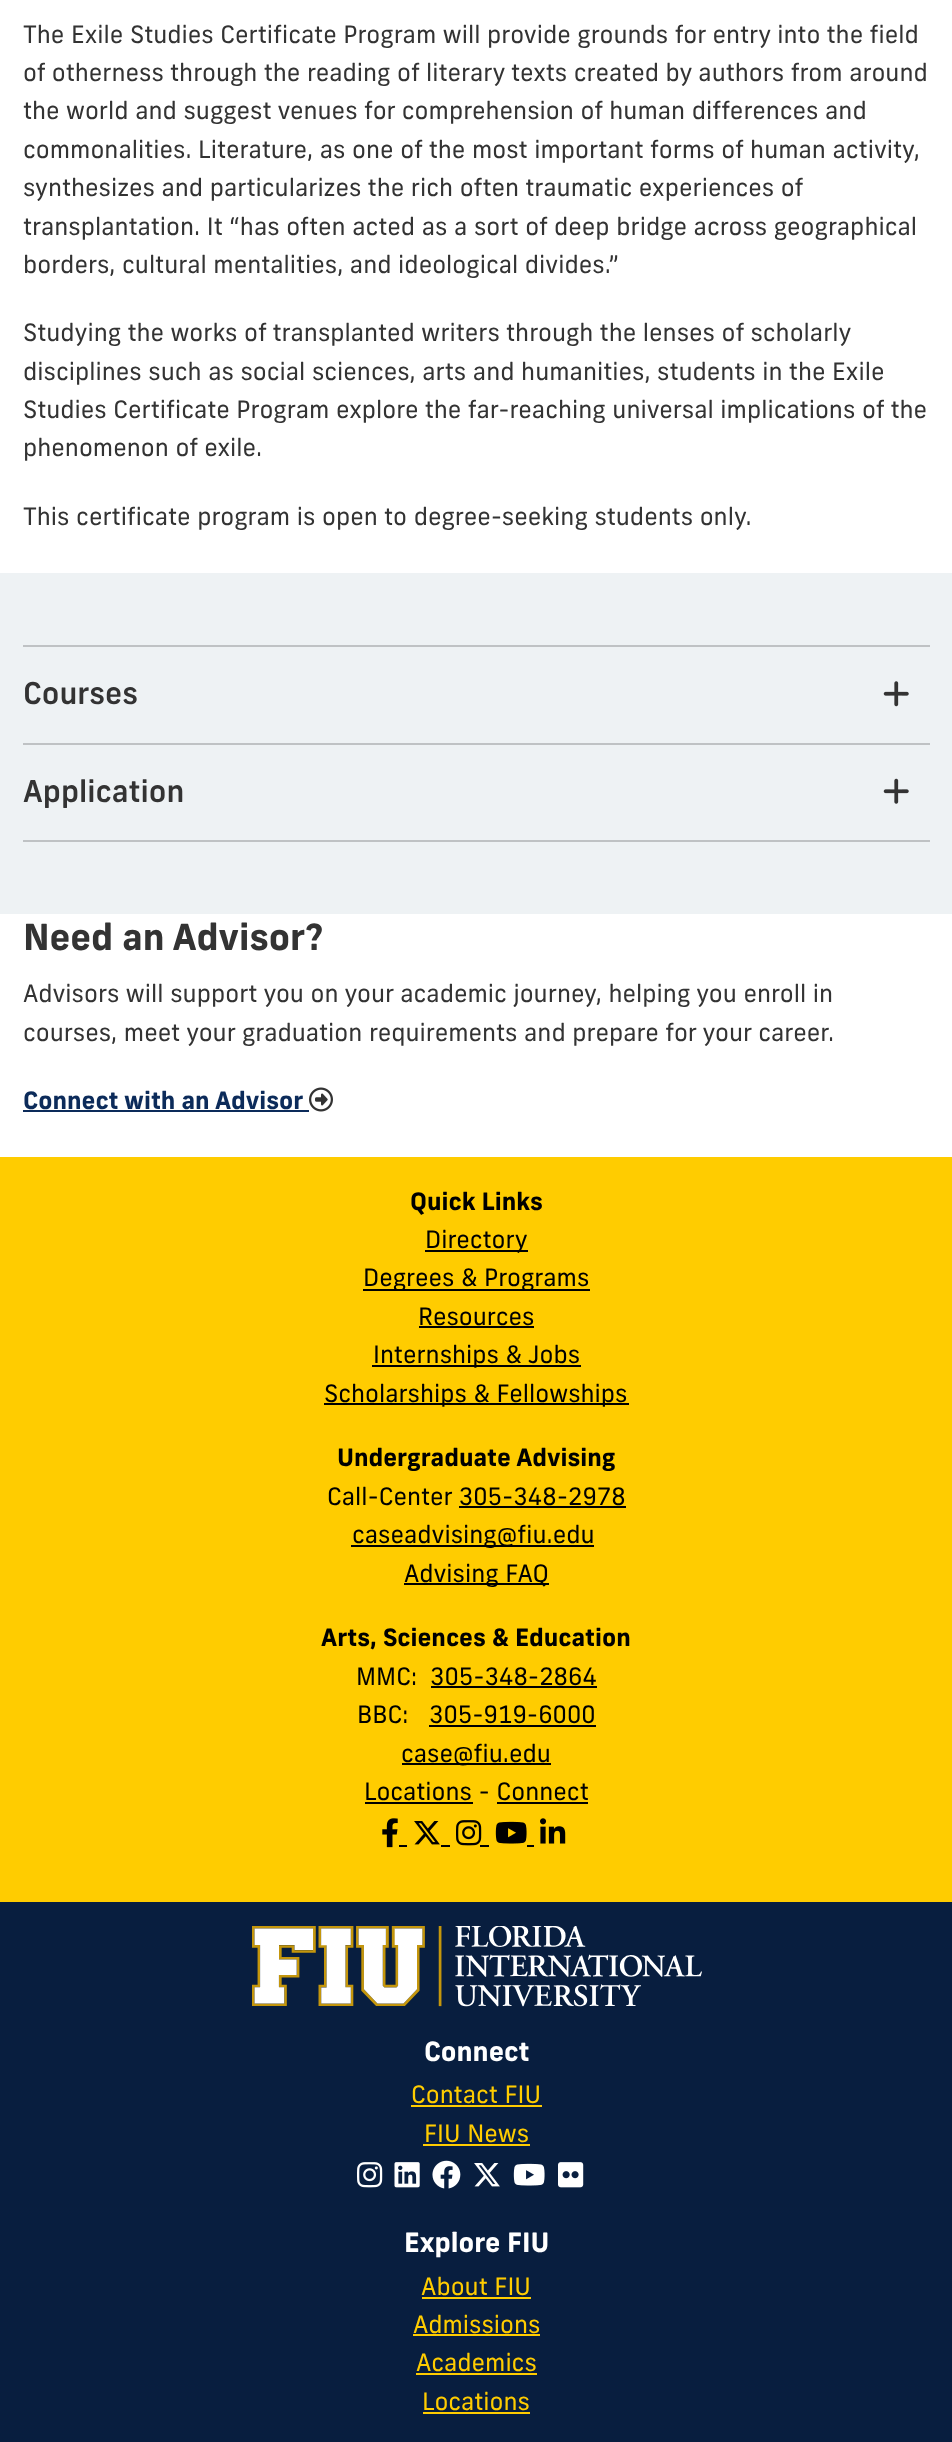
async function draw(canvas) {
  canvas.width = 952;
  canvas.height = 2442;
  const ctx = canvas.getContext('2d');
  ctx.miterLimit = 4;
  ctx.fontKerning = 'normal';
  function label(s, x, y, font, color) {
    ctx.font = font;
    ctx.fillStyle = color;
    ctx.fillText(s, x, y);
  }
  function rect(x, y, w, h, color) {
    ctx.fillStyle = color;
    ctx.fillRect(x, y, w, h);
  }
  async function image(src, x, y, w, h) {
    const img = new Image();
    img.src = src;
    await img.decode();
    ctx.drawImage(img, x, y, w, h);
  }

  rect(0, 0, 952, 2442, '#fff');
  label('The Exile Studies Certificate Program will provide grounds for entry into the field', 23, 43, '24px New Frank', '#333');
  label('of otherness through the reading of literary texts created by authors from around', 23, 81, '24px New Frank', '#333');
  label('the world and suggest venues for comprehension of human differences and', 23, 119, '24px New Frank', '#333');
  label('commonalities. Literature, as one of the most important forms of human activity,', 23, 158, '24px New Frank', '#333');
  label('synthesizes and particularizes the rich often traumatic experiences of', 23, 196, '24px New Frank', '#333');
  label('transplantation. It “has often acted as a sort of deep bridge across geographical', 23, 235, '24px New Frank', '#333');
  label('borders, cultural mentalities, and ideological divides.”', 23, 273, '24px New Frank', '#333');
  label('Studying the works of transplanted writers through the lenses of scholarly', 23, 341, '24px New Frank', '#333');
  label('disciplines such as social sciences, arts and humanities, students in the Exile', 23, 380, '24px New Frank', '#333');
  label('Studies Certificate Program explore the far-reaching universal implications of the', 23, 418, '24px New Frank', '#333');
  label('phenomenon of exile.', 23, 456, '24px New Frank', '#333');
  label('This certificate program is open to degree-seeking students only.', 23, 525, '24px New Frank', '#333');
  rect(0, 573, 952, 341, '#eef2f4');
  rect(23, 645, 907, 2, '#bfc2c4');
  rect(23, 743, 907, 2, '#bfc2c4');
  label('Courses', 23, 704, '500 30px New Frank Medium', '#333');
  await image('assets/img1.png', 883, 681, 26, 26);
  rect(23, 840, 907, 2, '#bfc2c4');
  label('Application', 23, 802, '500 30px New Frank Medium', '#333');
  await image('assets/img2.png', 883, 778, 26, 26);
  label('Need an Advisor?', 23, 950, 'bold 36px New Frank', '#333');
  label('Advisors will support you on your academic journey, helping you enroll in', 23, 1002, '24px New Frank', '#333');
  label('courses, meet your graduation requirements and prepare for your career.', 23, 1041, '24px New Frank', '#333');
  label('Connect with an Advisor', 23, 1109, 'bold 24px New Frank', '#0c2b5a');
  rect(23, 1110, 286, 2, '#0c2b5a');
  await image('assets/img3.png', 309, 1087, 24, 25);
  rect(0, 1902, 952, 540, '#081e3f');
  rect(0, 1157, 952, 745, '#fc0');
  label('Quick Links', 410, 1210, 'bold 24px New Frank', '#000');
  rect(425, 1250, 103, 2, '#000');
  label('Directory', 425, 1248, '24px New Frank', '#000');
  rect(363, 1289, 227, 2, '#000');
  label('Degrees & Programs', 363, 1286, '24px New Frank', '#000');
  label('Resources', 418, 1325, '24px New Frank', '#000');
  rect(419, 1326, 115, 2, '#000');
  rect(372, 1365, 209, 2, '#000');
  label('Internships & Jobs', 373, 1363, '24px New Frank', '#000');
  rect(324, 1403, 305, 2, '#000');
  label('Scholarships & Fellowships', 324, 1402, '24px New Frank', '#000');
  label('Undergraduate Advising', 337, 1466, 'bold 24px New Frank', '#000');
  label('Call-Center 305-348-2978', 327, 1505, '24px New Frank', '#000');
  rect(459, 1506, 167, 2, '#000');
  rect(351, 1545, 243, 2, '#000');
  label('caseadvising@fiu.edu', 352, 1543, '24px New Frank', '#000');
  rect(404, 1583, 145, 2, '#000');
  label('Advising FAQ', 404, 1582, '24px New Frank', '#000');
  label('Arts, Sciences & Education', 321, 1646, 'bold 24px New Frank', '#000');
  label('MMC:', 356, 1685, '24px New Frank', '#000');
  label('305-348-2864', 430, 1685, '24px New Frank', '#000');
  rect(431, 1686, 166, 2, '#000');
  label('BBC:', 357, 1723, '24px New Frank', '#000');
  label('305-919-6000', 429, 1723, '24px New Frank', '#000');
  rect(429, 1725, 167, 2, '#000');
  rect(402, 1763, 149, 2, '#000');
  label('case@fiu.edu', 401, 1762, '24px New Frank', '#000');
  label('Locations - Connect', 364, 1800, '24px New Frank', '#000');
  rect(365, 1802, 108, 2, '#000');
  rect(497, 1802, 91, 2, '#000');
  await image('assets/img4.png', 382, 1818, 16, 30);
  rect(399, 1845, 8, 2, '#000');
  await image('assets/img5.png', 414, 1821, 26, 24);
  rect(441, 1845, 9, 2, '#000');
  await image('assets/img6.png', 456, 1820, 26, 26);
  rect(480, 1845, 9, 2, '#000');
  await image('assets/img7.png', 495, 1821, 32, 23);
  rect(527, 1845, 7, 2, '#000');
  await image('assets/img8.png', 540, 1818, 26, 26);
  await image('assets/img9.png', 252, 1926, 450, 81);
  label('Connect', 424, 2061, 'bold 26.5px New Frank', '#fff');
  label('Contact FIU', 411, 2103, '24px New Frank', '#fc0');
  rect(411, 2105, 131, 2, '#fc0');
  label('FIU News', 424, 2142, '24px New Frank', '#fc0');
  rect(423, 2144, 107, 2, '#fc0');
  await image('assets/img10.png', 357, 2162, 26, 26);
  await image('assets/img11.png', 394, 2162, 26, 26);
  await image('assets/img12.png', 432, 2160, 29, 29);
  await image('assets/img13.png', 474, 2163, 26, 24);
  await image('assets/img14.png', 513, 2163, 32, 23);
  await image('assets/img15.png', 558, 2162, 26, 26);
  label('Explore FIU', 404, 2252, 'bold 26.5px New Frank', '#fff');
  label('About FIU', 421, 2295, '24px New Frank', '#fc0');
  rect(422, 2297, 109, 2, '#fc0');
  label('Admissions', 413, 2333, '24px New Frank', '#fc0');
  rect(413, 2334, 127, 2, '#fc0');
  label('Academics', 416, 2371, '24px New Frank', '#fc0');
  rect(416, 2373, 121, 2, '#fc0');
  label('Locations', 422, 2410, '24px New Frank', '#fc0');
  rect(423, 2412, 107, 2, '#fc0');
}

draw(document.querySelector('canvas'));
